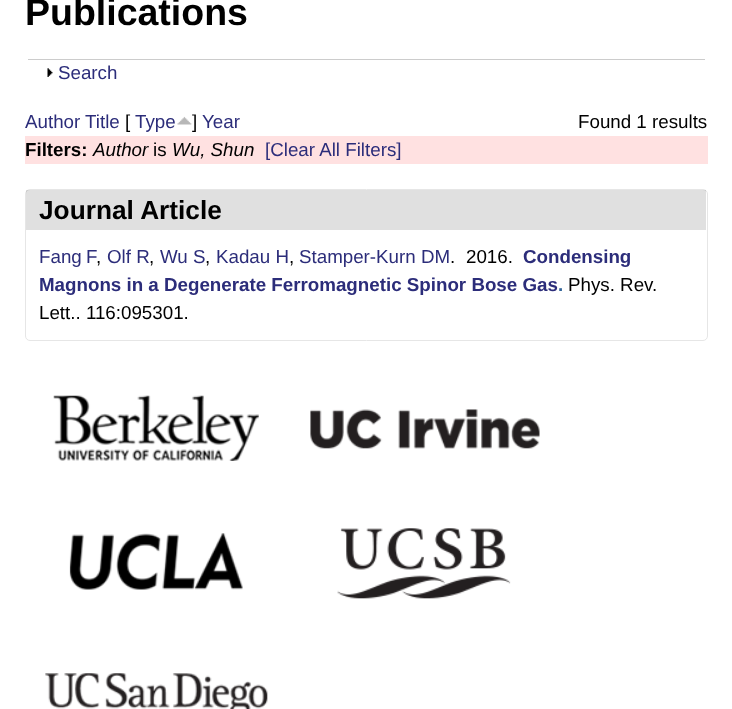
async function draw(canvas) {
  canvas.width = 732;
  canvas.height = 709;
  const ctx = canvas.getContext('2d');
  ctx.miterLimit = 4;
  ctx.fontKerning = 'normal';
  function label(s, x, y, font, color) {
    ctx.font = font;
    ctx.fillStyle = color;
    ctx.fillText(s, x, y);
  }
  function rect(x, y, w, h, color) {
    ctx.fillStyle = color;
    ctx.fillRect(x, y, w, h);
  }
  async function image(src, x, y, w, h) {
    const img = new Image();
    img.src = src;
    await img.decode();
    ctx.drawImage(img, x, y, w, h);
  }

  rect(0, 0, 732, 709, '#fff');
  label('Publications', 25, 25, 'bold 37.5px Liberation Sans', '#000');
  rect(28, 59, 677, 1, '#ccc');
  await image('assets/img1.png', 47, 68, 6, 9);
  label('Search', 58, 79, '18.75px Liberation Sans', '#2c2d7a');
  label('Author', 25, 128, '18.75px Liberation Sans', '#2c2d7a');
  label('Title', 85, 128, '18.75px Liberation Sans', '#2c2d7a');
  label('[', 125, 128, '18.75px Liberation Sans', '#000');
  label('Type', 135, 128, '18.75px Liberation Sans', '#2c2d7a');
  await image('assets/img2.png', 177, 116, 15, 9);
  label(']', 192, 128, '18.75px Liberation Sans', '#000');
  label('Year', 202, 128, '18.75px Liberation Sans', '#2c2d7a');
  label('Found 1 results', 578, 128, '18.75px Liberation Sans', '#000');
  rect(25, 136, 683, 28, '#ffe1e1');
  label('Filters:', 25, 156, 'bold 18.75px Liberation Sans', '#000');
  label('Author', 93, 156, 'italic 18.75px Liberation Sans', '#000');
  label('is', 153, 156, '18.75px Liberation Sans', '#000');
  label('Wu, Shun', 172, 156, 'italic 18.75px Liberation Sans', '#000');
  label('[Clear All Filters]', 265, 156, '18.75px Liberation Sans', '#2c2d7a');
  ctx.beginPath();
  ctx.roundRect(25.5, 189.5, 682, 151, 4.5);
  ctx.strokeStyle = '#e6e6e6';
  ctx.stroke();
  rect(26, 190, 680, 40, '#0000001f');
  label('Journal Article', 39, 219, 'bold 26.25px Liberation Sans', '#000');
  ctx.wordSpacing = '-1px';
  label('Fang F', 39, 263, '18.75px Liberation Sans', '#2c2d7a');
  ctx.wordSpacing = '0px';
  label(',', 96, 263, '18.75px Liberation Sans', '#000');
  label('Olf R', 107, 263, '18.75px Liberation Sans', '#2c2d7a');
  label(',', 149, 263, '18.75px Liberation Sans', '#000');
  label('Wu S', 160, 263, '18.75px Liberation Sans', '#2c2d7a');
  label(',', 205, 263, '18.75px Liberation Sans', '#000');
  label('Kadau H', 216, 263, '18.75px Liberation Sans', '#2c2d7a');
  label(',', 289, 263, '18.75px Liberation Sans', '#000');
  label('Stamper-Kurn DM', 299, 263, '18.75px Liberation Sans', '#2c2d7a');
  label('.', 450, 263, '18.75px Liberation Sans', '#000');
  label('2016.', 466, 263, '18.75px Liberation Sans', '#000');
  label('Condensing', 523, 263, 'bold 18.75px Liberation Sans', '#2c2d7a');
  label('Magnons in a Degenerate Ferromagnetic Spinor Bose Gas', 39, 291, 'bold 18.75px Liberation Sans', '#2c2d7a');
  label('.', 558, 291, 'bold 18.75px Liberation Sans', '#336599');
  label('Phys. Rev.', 568, 291, '18.75px Liberation Sans', '#000');
  label('Lett.. 116:095301.', 39, 319, '18.75px Liberation Sans', '#000');
  await image('assets/img3.png', 53, 395, 206, 66);
  await image('assets/img4.png', 310, 409, 230, 40);
  await image('assets/img5.png', 69, 533, 174, 57);
  await image('assets/img6.png', 337, 528, 174, 71);
  await image('assets/img7.png', 45, 673, 223, 36);
}

draw(document.querySelector('canvas'));
